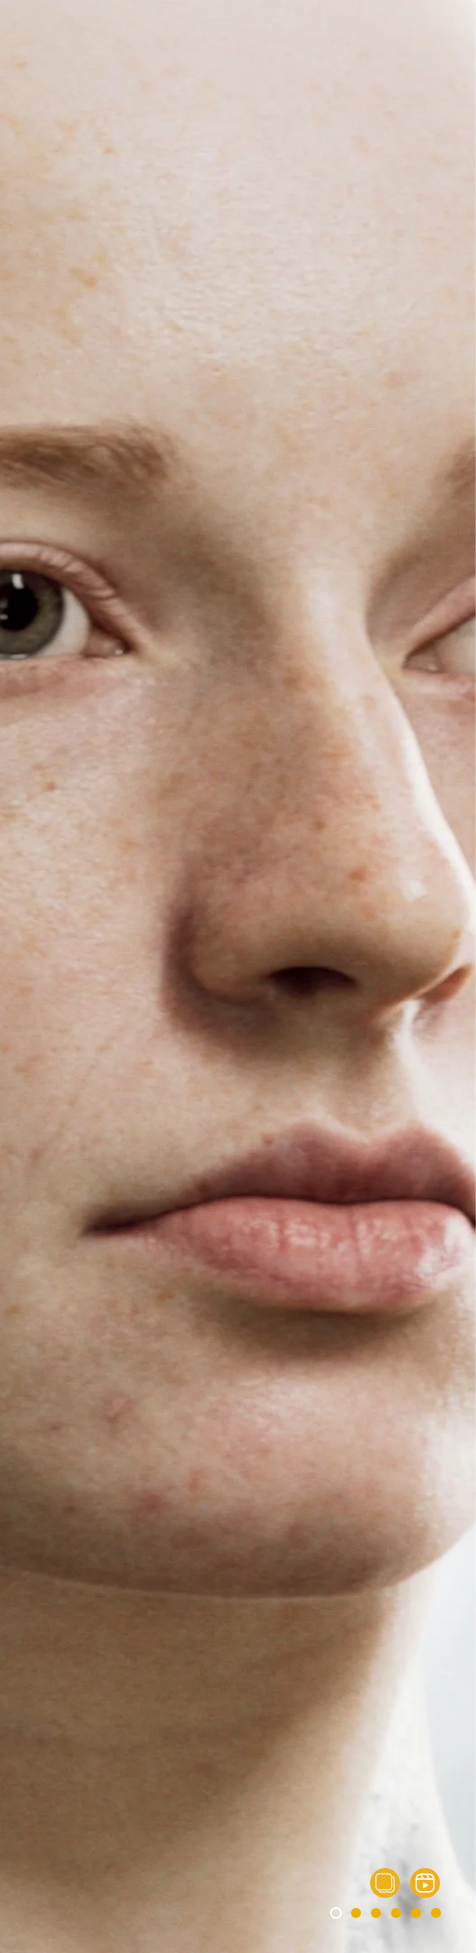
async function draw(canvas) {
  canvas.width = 476;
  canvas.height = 1953;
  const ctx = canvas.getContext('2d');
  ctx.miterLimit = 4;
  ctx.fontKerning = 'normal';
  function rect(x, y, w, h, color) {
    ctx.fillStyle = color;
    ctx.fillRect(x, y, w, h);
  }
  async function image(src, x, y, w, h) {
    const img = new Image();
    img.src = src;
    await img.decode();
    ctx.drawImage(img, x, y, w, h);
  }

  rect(0, 0, 476, 1953, '#fff');
  await image('assets/img1.png', 0, 0, 476, 1953);
  ctx.beginPath();
  ctx.arc(336, 1913, 5, 0, 2 * Math.PI);
  ctx.strokeStyle = '#fff';
  ctx.lineWidth = 2;
  ctx.stroke();
  ctx.fillStyle = '#edb000';
  ctx.beginPath();
  ctx.arc(356, 1913, 5, 0, 2 * Math.PI);
  ctx.fill();
  ctx.beginPath();
  ctx.arc(376, 1913, 5, 0, 2 * Math.PI);
  ctx.fill();
  ctx.beginPath();
  ctx.arc(396, 1913, 5, 0, 2 * Math.PI);
  ctx.fill();
  ctx.beginPath();
  ctx.arc(416, 1913, 5, 0, 2 * Math.PI);
  ctx.fill();
  ctx.beginPath();
  ctx.arc(436, 1913, 5, 0, 2 * Math.PI);
  ctx.fill();
  await image('assets/img2.png', 370, 1868, 30, 30);
  await image('assets/img3.png', 410, 1868, 30, 30);
}

draw(document.querySelector('canvas'));
